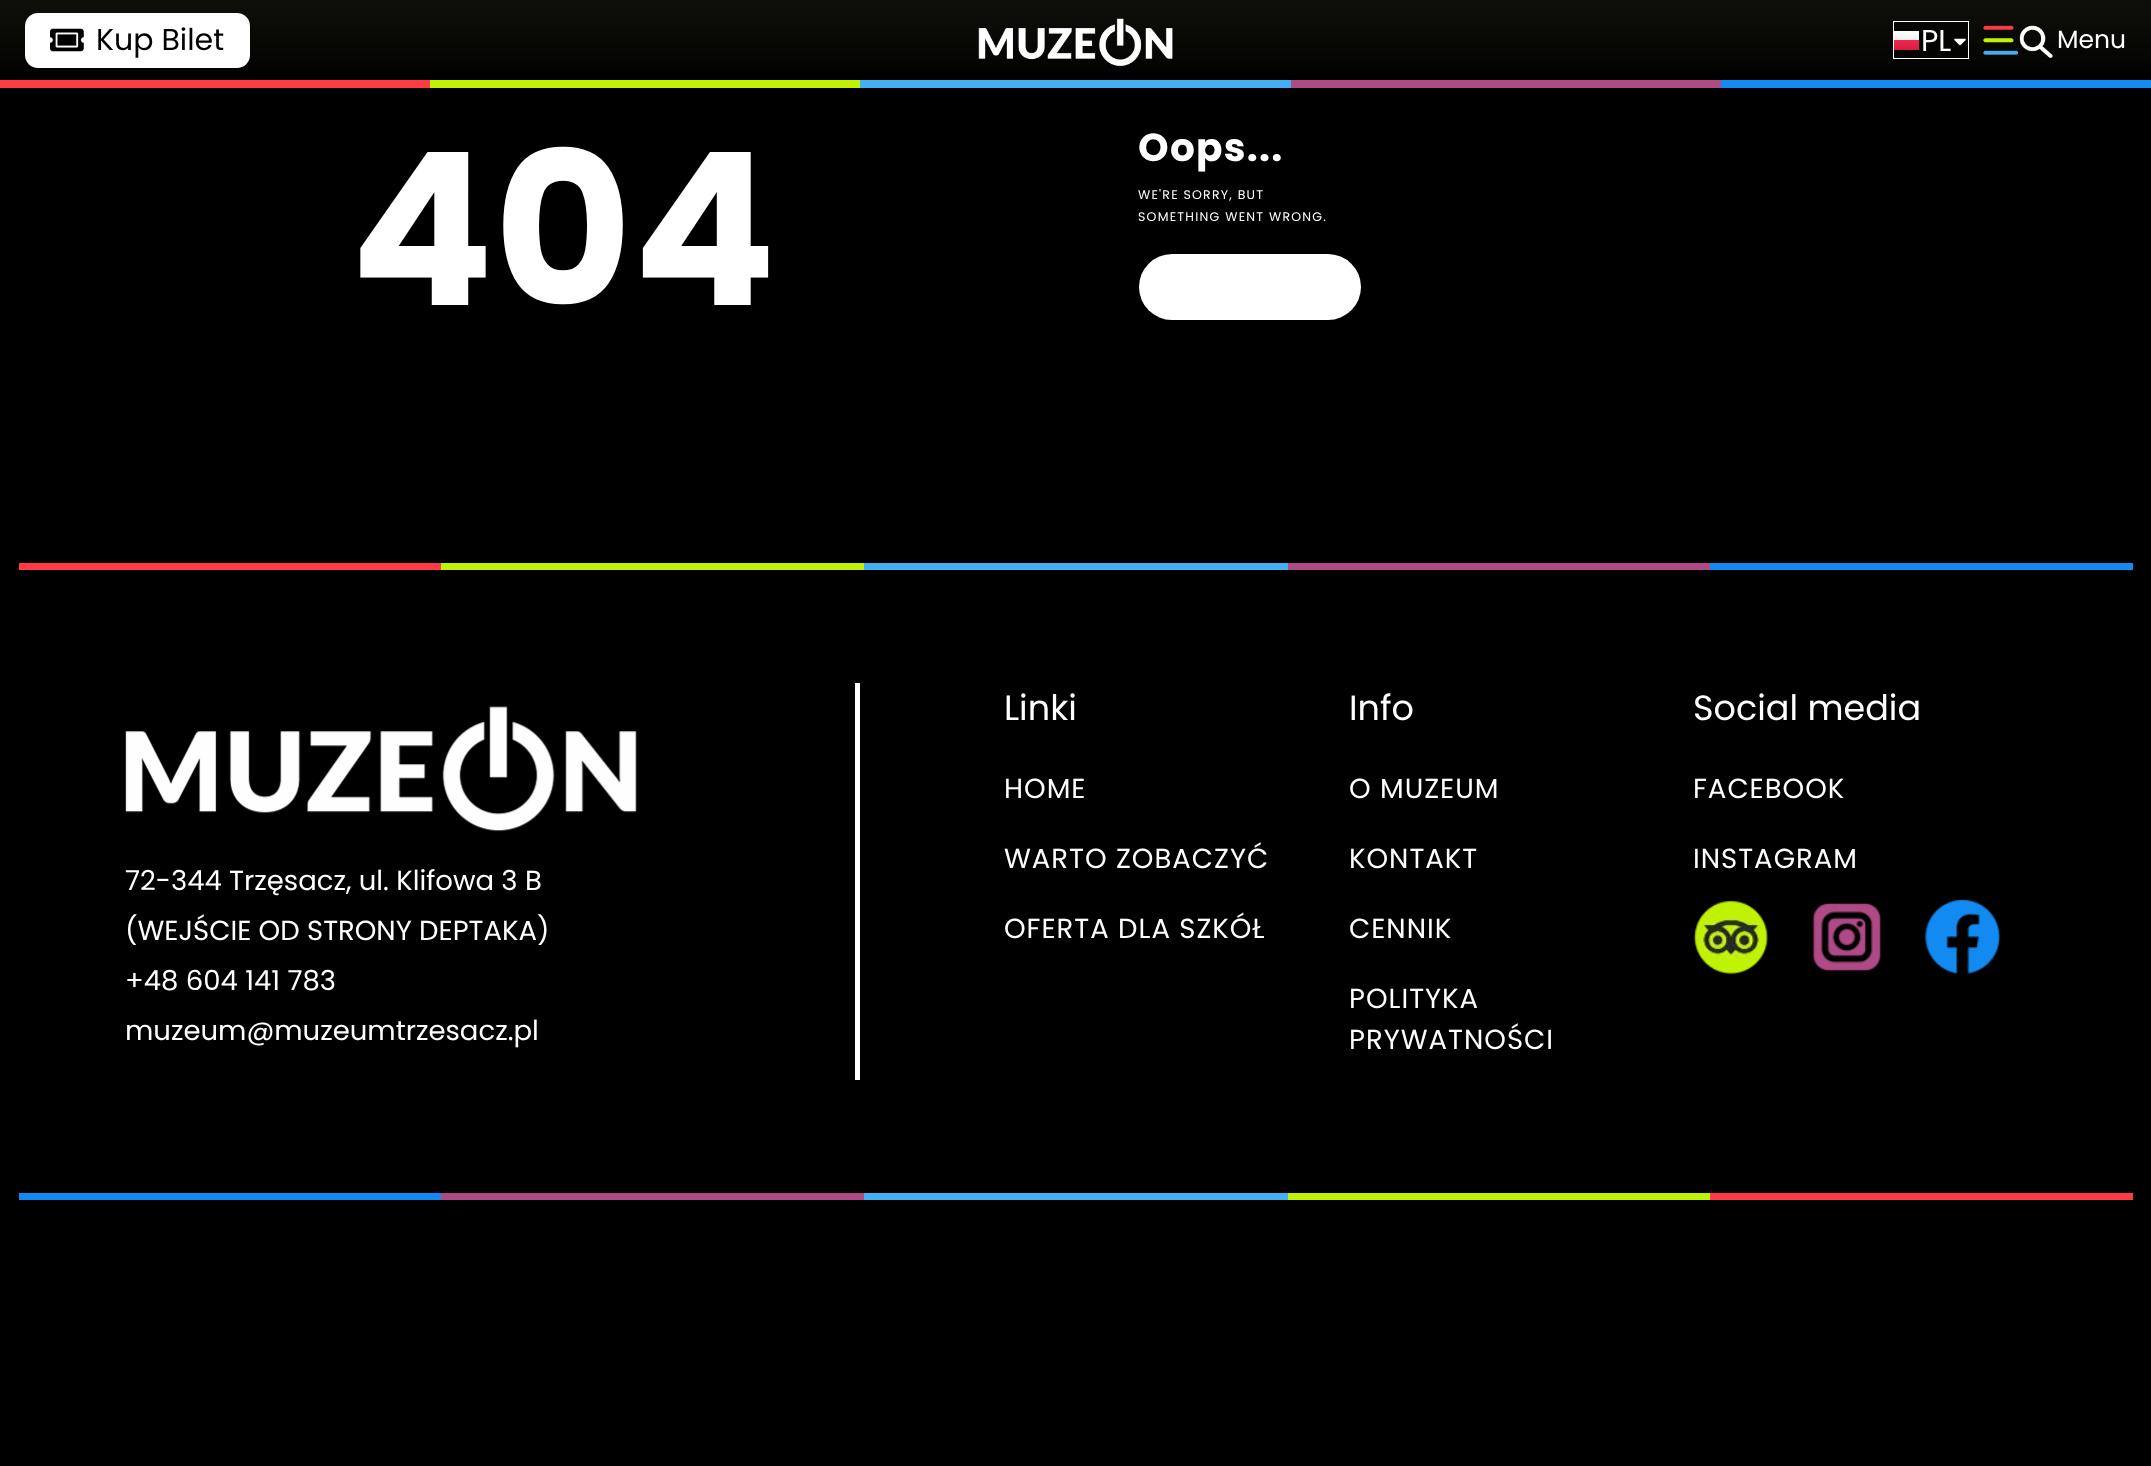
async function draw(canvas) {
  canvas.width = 2151;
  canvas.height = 1466;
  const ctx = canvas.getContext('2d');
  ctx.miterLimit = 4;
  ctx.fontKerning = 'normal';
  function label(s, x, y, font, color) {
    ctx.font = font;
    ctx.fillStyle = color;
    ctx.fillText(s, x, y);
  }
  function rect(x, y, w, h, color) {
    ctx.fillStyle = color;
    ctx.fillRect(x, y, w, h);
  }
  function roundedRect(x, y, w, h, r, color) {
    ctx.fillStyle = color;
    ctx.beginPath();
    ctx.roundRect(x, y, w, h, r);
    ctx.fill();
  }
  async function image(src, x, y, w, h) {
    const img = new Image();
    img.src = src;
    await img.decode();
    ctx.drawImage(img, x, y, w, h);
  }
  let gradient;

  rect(0, 0, 2151, 1466, '#000');
  gradient = ctx.createLinearGradient(1076, 88, 1076, 0);
  gradient.addColorStop(0, '#000');
  gradient.addColorStop(1, '#0f0f0a');
  ctx.fillStyle = gradient;
  ctx.fillRect(0, 0, 2151, 73);
  gradient = ctx.createLinearGradient(1076, 88, 1076, 0);
  gradient.addColorStop(0, '#000');
  gradient.addColorStop(1, '#080805');
  ctx.fillStyle = gradient;
  ctx.fillRect(1894, 23, 74, 33);
  roundedRect(25, 13, 225, 55, 13, '#fff');
  await image('assets/img1.png', 50, 28, 34, 24);
  label('Kup Bilet', 96, 50, '30px Poppins', '#000');
  await image('assets/img2.png', 978, 18, 195, 49);
  ctx.strokeStyle = '#fff';
  ctx.strokeRect(1893.5, 21.5, 75, 37);
  gradient = ctx.createLinearGradient(1906, 31, 1906, 40);
  gradient.addColorStop(0, '#fff');
  gradient.addColorStop(1, '#f0f0f0');
  ctx.fillStyle = gradient;
  ctx.fillRect(1894, 31, 25, 9);
  gradient = ctx.createLinearGradient(1906, 40, 1906, 50);
  gradient.addColorStop(0, '#eb2a50');
  gradient.addColorStop(1, '#da1b40');
  ctx.fillStyle = gradient;
  ctx.fillRect(1894, 40, 25, 10);
  label('PL', 1921, 51, '30px Poppins', '#fff');
  await image('assets/img3.png', 1954, 38, 12, 8);
  await image('assets/img4.png', 1983, 25, 70, 33);
  label('Menu', 2057, 48, '25px Poppins', '#fff');
  rect(0, 80, 430, 8, '#ff3b44');
  rect(430, 80, 430, 8, '#c0f205');
  rect(860, 80, 431, 8, '#44aff3');
  rect(1291, 80, 430, 8, '#ae4a84');
  rect(1721, 80, 430, 8, '#138af2');
  label('404', 350, 305, 'bold 212.5px Poppins', '#fff');
  ctx.letterSpacing = '1.25px';
  label('Oops...', 1138, 161, 'bold 39px Poppins', '#fff');
  label('WE\'RE SORRY, BUT', 1138, 199, '12.5px Poppins', '#fff');
  label('SOMETHING WENT WRONG.', 1138, 221, '12.5px Poppins', '#fff');
  roundedRect(1139, 254, 222, 66, 33, '#fff');
  rect(19, 563, 422, 7, '#ff3b44');
  rect(441, 563, 423, 7, '#c0f205');
  rect(864, 563, 424, 7, '#44aff3');
  rect(1288, 563, 422, 7, '#ae4a84');
  rect(1710, 563, 423, 7, '#138af2');
  rect(855, 683, 5, 397, '#fff');
  await image('assets/img5.png', 125, 706, 512, 126);
  ctx.letterSpacing = '0px';
  label('72-344 Trzęsacz, ul. Klifowa 3 B', 125, 890, '27.5px Poppins', '#fff');
  label('(WEJŚCIE OD STRONY DEPTAKA)', 125, 940, '27.5px Poppins', '#fff');
  label('+48 604 141 783', 125, 990, '27.5px Poppins', '#fff');
  label('muzeum@muzeumtrzesacz.pl', 125, 1040, '27.5px Poppins', '#fff');
  label('Linki', 1004, 720, '35px Poppins', '#fff');
  ctx.letterSpacing = '1px';
  label('HOME', 1004, 798, '27.5px Poppins', '#fff');
  label('WARTO ZOBACZYĆ', 1004, 868, '27.5px Poppins', '#fff');
  label('OFERTA DLA SZKÓŁ', 1004, 938, '27.5px Poppins', '#fff');
  ctx.letterSpacing = '0px';
  label('Info', 1349, 720, '35px Poppins', '#fff');
  ctx.letterSpacing = '1px';
  label('O MUZEUM', 1349, 798, '27.5px Poppins', '#fff');
  label('KONTAKT', 1349, 868, '27.5px Poppins', '#fff');
  label('CENNIK', 1349, 938, '27.5px Poppins', '#fff');
  label('POLITYKA', 1349, 1008, '27.5px Poppins', '#fff');
  label('PRYWATNOŚCI', 1349, 1049, '27.5px Poppins', '#fff');
  ctx.letterSpacing = '0px';
  label('Social media', 1693, 720, '35px Poppins', '#fff');
  ctx.letterSpacing = '1px';
  label('FACEBOOK', 1693, 798, '27.5px Poppins', '#fff');
  label('INSTAGRAM', 1693, 868, '27.5px Poppins', '#fff');
  await image('assets/img6.png', 1693, 900, 75, 75);
  await image('assets/img7.png', 1812, 902, 70, 70);
  await image('assets/img8.png', 1925, 899, 75, 75);
  rect(19, 1193, 422, 7, '#138af2');
  rect(441, 1193, 423, 7, '#ae4a84');
  rect(864, 1193, 424, 7, '#44aff3');
  rect(1288, 1193, 422, 7, '#c0f205');
  rect(1710, 1193, 423, 7, '#ff3b44');
}

draw(document.querySelector('canvas'));
